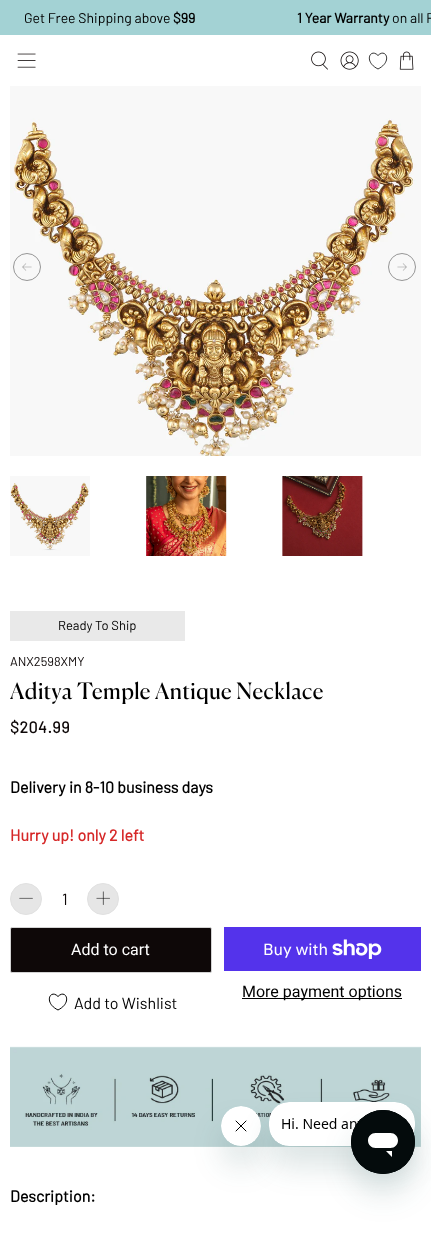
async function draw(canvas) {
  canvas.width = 431;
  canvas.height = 1234;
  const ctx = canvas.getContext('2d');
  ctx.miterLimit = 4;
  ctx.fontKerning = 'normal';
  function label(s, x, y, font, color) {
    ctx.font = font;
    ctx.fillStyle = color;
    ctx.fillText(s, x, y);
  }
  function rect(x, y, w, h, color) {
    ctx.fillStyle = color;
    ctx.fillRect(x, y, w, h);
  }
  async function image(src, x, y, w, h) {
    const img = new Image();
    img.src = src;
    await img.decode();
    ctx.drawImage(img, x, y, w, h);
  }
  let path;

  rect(0, 0, 431, 1234, '#fff');
  rect(0, 0, 431, 35, '#a3d2d4');
  label('Get Free Shipping above', 24, 23, '14px Barlow', '#000');
  label('$99', 173, 23, 'bold 14px Barlow', '#000');
  label('1 Year Warranty', 297, 23, 'bold 14px Barlow', '#000');
  label('on all P', 392, 23, '14px Barlow', '#000');
  await image('assets/img1.png', 17, 53, 19, 15);
  await image('assets/img2.png', 311, 51, 17, 19);
  await image('assets/img3.png', 340, 51, 19, 19);
  path = new Path2D('M378 69C363 61.5 370.5 47.5 378 55.5C385.5 47.5 393 61.5 378 69Z');
  ctx.strokeStyle = '#000';
  ctx.lineWidth = 0.8;
  ctx.stroke(path);
  await image('assets/img4.png', 399, 51, 15, 19);
  await image('assets/img5.png', 10, 86, 411, 370);
  ctx.beginPath();
  ctx.arc(27, 267, 13.5, 0, 2 * Math.PI);
  ctx.strokeStyle = '#969696';
  ctx.lineWidth = 1;
  ctx.stroke();
  await image('assets/img6.png', 22, 263, 10, 8);
  ctx.beginPath();
  ctx.arc(402, 267, 13.5, 0, 2 * Math.PI);
  ctx.stroke();
  await image('assets/img7.png', 397, 263, 10, 8);
  await image('assets/img8.png', 10, 476, 80, 80);
  await image('assets/img9.png', 146, 476, 81, 80);
  await image('assets/img10.png', 282, 476, 81, 80);
  rect(10, 611, 175, 30, '#e9e9e9');
  label('Ready To Ship', 58, 630, '13px Barlow', '#000');
  label('ANX2598XMY', 10, 666, '12.75px Barlow', '#0e0808');
  ctx.letterSpacing = '0.5px';
  label('Aditya Temple Antique Necklace', 10, 699, '22.4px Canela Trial', '#000');
  label('$204.99', 10, 733, 'bold 16px Barlow', '#0e0808');
  ctx.letterSpacing = '0px';
  label('Delivery in 8-10 business days', 10, 793, 'bold 16px Barlow', '#000');
  label('Hurry up! only 2 left', 10, 841, 'bold 16px Barlow', '#d62828');
  ctx.fillStyle = '#e6e6e6';
  ctx.beginPath();
  ctx.arc(26, 899, 15.5, 0, 2 * Math.PI);
  ctx.fill();
  ctx.strokeStyle = '#e1e1e1';
  ctx.stroke();
  await image('assets/img11.png', 19, 897, 14, 2);
  label('1', 62, 905, '16px Barlow', '#0e0808');
  ctx.fillStyle = '#e6e6e6';
  ctx.beginPath();
  ctx.arc(103, 899, 15.5, 0, 2 * Math.PI);
  ctx.fill();
  ctx.stroke();
  await image('assets/img12.png', 96, 891, 14, 14);
  ctx.fillStyle = '#0e0808';
  ctx.beginPath();
  ctx.roundRect(10.5, 927.5, 201, 45, 1.5);
  ctx.fill();
  ctx.strokeStyle = '#d3d3d3';
  ctx.stroke();
  label('Add to cart', 71, 955, '16px Roboto', '#fff');
  rect(224, 927, 197, 44, '#5433eb');
  label('Buy with', 263, 955, '16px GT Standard', '#fff');
  await image('assets/img13.png', 332, 939, 50, 20);
  rect(242, 998, 160, 1, '#000');
  label('More payment options', 242, 997, '16px Roboto', '#000');
  path = new Path2D('M58 1010C43 1002.5 50.5 988.5 58 996.5C65.5 988.5 73 1002.5 58 1010Z');
  ctx.strokeStyle = '#000';
  ctx.stroke(path);
  label('Add to Wishlist', 74, 1009, '16px Barlow', '#000');
  await image('assets/img14.png', 10, 1046, 411, 101);
  label('Description:', 10, 1202, 'bold 16px Barlow', '#000');
  ctx.fillStyle = '#17494d26';
  ctx.filter = 'blur(15px)';
  ctx.beginPath();
  ctx.roundRect(221, 1126, 40, 40, 20);
  ctx.fill();
  ctx.filter = 'none';
  await image('assets/img16.png', 221, 1106, 40, 40);
  ctx.filter = 'blur(15px)';
  ctx.beginPath();
  ctx.roundRect(269, 1122, 146, 44, 20);
  ctx.fill();
  ctx.filter = 'none';
  await image('assets/img15.png', 269, 1102, 146, 44);
  ctx.filter = 'blur(15px)';
  ctx.beginPath();
  ctx.roundRect(351, 1130, 64, 64, 32);
  ctx.fill();
  ctx.filter = 'none';
  await image('assets/img17.png', 351, 1110, 64, 64);
}

draw(document.querySelector('canvas'));
